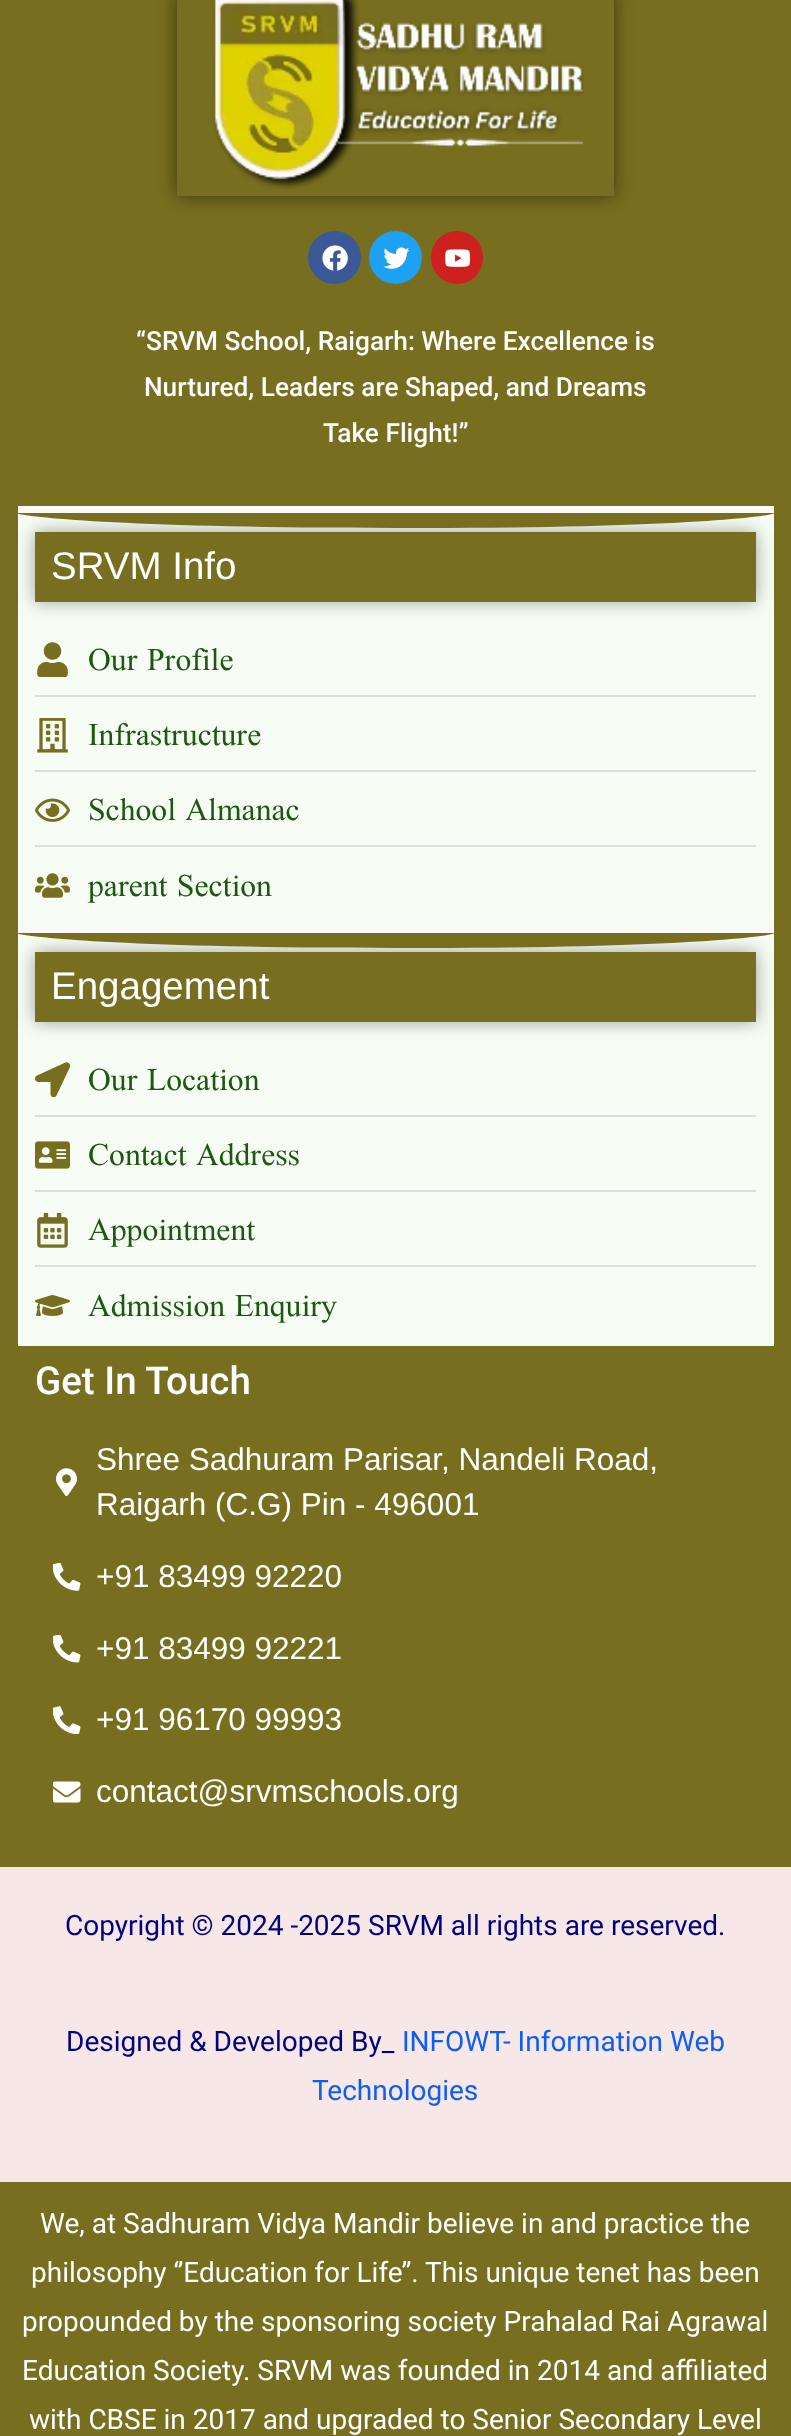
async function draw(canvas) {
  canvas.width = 791;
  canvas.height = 2436;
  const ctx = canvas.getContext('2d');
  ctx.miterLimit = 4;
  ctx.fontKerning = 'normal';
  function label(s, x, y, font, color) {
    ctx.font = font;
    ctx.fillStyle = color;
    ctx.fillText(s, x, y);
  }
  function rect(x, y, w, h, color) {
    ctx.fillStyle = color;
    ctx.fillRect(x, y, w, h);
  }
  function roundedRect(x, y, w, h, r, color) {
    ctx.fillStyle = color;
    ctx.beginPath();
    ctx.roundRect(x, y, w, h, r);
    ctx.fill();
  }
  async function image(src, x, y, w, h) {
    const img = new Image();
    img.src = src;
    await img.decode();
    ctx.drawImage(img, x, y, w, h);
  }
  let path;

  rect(0, 0, 791, 2436, '#776e1f');
  ctx.save();
  path = new Path2D('M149 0H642V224H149ZM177-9H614V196H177Z');
  ctx.clip(path, 'evenodd');
  ctx.fillStyle = '#00000080';
  ctx.filter = 'blur(9px)';
  ctx.beginPath();
  ctx.rect(177, -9, 437, 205);
  ctx.fill();
  ctx.filter = 'none';
  ctx.restore();
  await image('assets/img1.png', 213, 0, 371, 189);
  ctx.fillStyle = '#3b5998';
  ctx.beginPath();
  ctx.arc(334.5, 257.5, 26.5, 0, 2 * Math.PI);
  ctx.fill();
  await image('assets/img2.png', 322, 245, 26, 26);
  ctx.fillStyle = '#1da1f2';
  ctx.beginPath();
  ctx.arc(395.5, 257.5, 26.5, 0, 2 * Math.PI);
  ctx.fill();
  await image('assets/img3.png', 383, 247, 27, 22);
  roundedRect(431, 231, 52, 53, 26, '#cd201f');
  await image('assets/img4.png', 445, 249, 26, 18);
  label('“SRVM School, Raigarh: Where Excellence is', 136, 350, '500 26.25px Roboto', '#fff');
  label('Nurtured, Leaders are Shaped, and Dreams', 144, 396, '500 26.25px Roboto', '#fff');
  label('Take Flight!”', 323, 442, '500 26.25px Roboto', '#fff');
  rect(18, 515, 756, 411, '#f7fdf5');
  rect(18, 506, 756, 9, '#fcf9f9');
  ctx.fillStyle = '#0000005e';
  ctx.filter = 'blur(9px)';
  ctx.beginPath();
  ctx.rect(35, 532, 721, 70);
  ctx.fill();
  ctx.filter = 'none';
  ctx.save();
  ctx.beginPath();
  ctx.rect(18, 513, 756, 16);
  ctx.clip();
  ctx.fillStyle = '#776e1f';
  path = new Path2D('M775 513H16C17 516 112 528 396 528C679 529 775 516 775 513Z');
  ctx.fill(path);
  ctx.restore();
  rect(35, 532, 721, 70, '#776e1f');
  label('SRVM Info', 51, 579, '38.5px Liberation Sans', '#fff');
  await image('assets/img5.png', 37, 642, 31, 35);
  label('Our Profile', 88, 670, '35px Scheherazade New', '#1a5a0f');
  rect(35, 695, 721, 2, '#ddd');
  await image('assets/img6.png', 37, 718, 31, 35);
  label('Infrastructure', 88, 745, '35px Scheherazade New', '#1a5a0f');
  rect(35, 770, 721, 2, '#ddd');
  await image('assets/img7.png', 35, 798, 35, 24);
  label('School Almanac', 88, 820, '35px Scheherazade New', '#1a5a0f');
  rect(35, 845, 721, 2, '#ddd');
  await image('assets/img8.png', 35, 873, 35, 25);
  label('parent Section', 88, 896, '35px Scheherazade New', '#1a5a0f');
  rect(18, 935, 756, 411, '#f7fdf5');
  rect(18, 926, 756, 9, '#faf8f8');
  ctx.fillStyle = '#0000005e';
  ctx.filter = 'blur(9px)';
  ctx.beginPath();
  ctx.rect(35, 952, 721, 70);
  ctx.fill();
  ctx.filter = 'none';
  ctx.save();
  ctx.beginPath();
  ctx.rect(18, 933, 756, 16);
  ctx.clip();
  ctx.fillStyle = '#776e1f';
  path = new Path2D('M775 933H16C17 936 112 948 396 948C679 949 775 936 775 933Z');
  ctx.fill(path);
  ctx.restore();
  rect(35, 952, 721, 70, '#776e1f');
  label('Engagement', 51, 999, '38.5px Liberation Sans', '#fff');
  ctx.save();
  ctx.beginPath();
  ctx.rect(35, 1062, 35, 35);
  ctx.clip();
  ctx.fillStyle = '#776e1f';
  path = new Path2D('M65.5 1062.5L37 1075.5C33.5 1077 35 1082 38.5 1082H50.5V1094C50.5 1097.5 55 1098.5 56.5 1095.5L70 1067C71 1064 68 1061.5 65.5 1062.5Z');
  ctx.fill(path);
  ctx.restore();
  label('Our Location', 88, 1090, '35px Scheherazade New', '#1a5a0f');
  rect(35, 1115, 721, 2, '#ddd');
  await image('assets/img9.png', 35, 1141, 35, 28);
  label('Contact Address', 88, 1165, '35px Scheherazade New', '#1a5a0f');
  rect(35, 1190, 721, 2, '#ddd');
  await image('assets/img10.png', 37, 1213, 31, 35);
  label('Appointment', 88, 1240, '35px Scheherazade New', '#1a5a0f');
  rect(35, 1265, 721, 2, '#ddd');
  await image('assets/img11.png', 35, 1295, 35, 21);
  label('Admission Enquiry', 88, 1316, '35px Scheherazade New', '#1a5a0f');
  label('Get In Touch', 35, 1394, '500 38.5px Roboto', '#fff');
  await image('assets/img12.png', 56, 1468, 21, 28);
  label('Shree Sadhuram Parisar, Nandeli Road,', 96, 1470, '31.5px Liberation Sans', '#fff');
  label('Raigarh (C.G) Pin - 496001', 96, 1515, '31.5px Liberation Sans', '#fff');
  await image('assets/img13.png', 53, 1563, 28, 28);
  label('+91 83499 92220', 96, 1587, '31.5px Liberation Sans', '#fff');
  await image('assets/img14.png', 53, 1635, 28, 28);
  label('+91 83499 92221', 96, 1659, '31.5px Liberation Sans', '#fff');
  await image('assets/img15.png', 53, 1706, 28, 28);
  label('+91 96170 99993', 96, 1730, '31.5px Liberation Sans', '#fff');
  await image('assets/img16.png', 53, 1781, 28, 22);
  label('contact@srvmschools.org', 96, 1802, '31.5px Liberation Sans', '#fff');
  rect(0, 1867, 791, 315, '#f7e7e7');
  label('Copyright © 2024 -2025 SRVM all rights are reserved.', 65, 1935, '28px Roboto', '#000080');
  label('Designed & Developed By_', 66, 2051, '28px Roboto', '#000080');
  label('INFOWT- Information Web', 402, 2051, '28px Roboto', '#0d5ef4');
  label('Technologies', 312, 2100, '28px Roboto', '#0d5ef4');
  label('We, at Sadhuram Vidya Mandir believe in and practice the', 40, 2233, '28px Roboto', '#fff');
  label('philosophy ‘’Education for Life’’. This unique tenet has been', 31, 2282, '28px Roboto', '#fff');
  label('propounded by the sponsoring society Prahalad Rai Agrawal', 22, 2331, '28px Roboto', '#fff');
  label('Education Society. SRVM was founded in 2014 and affiliated', 22, 2380, '28px Roboto', '#fff');
  label('with CBSE in 2017 and upgraded to Senior Secondary Level', 29, 2429, '28px Roboto', '#fff');
}

draw(document.querySelector('canvas'));
